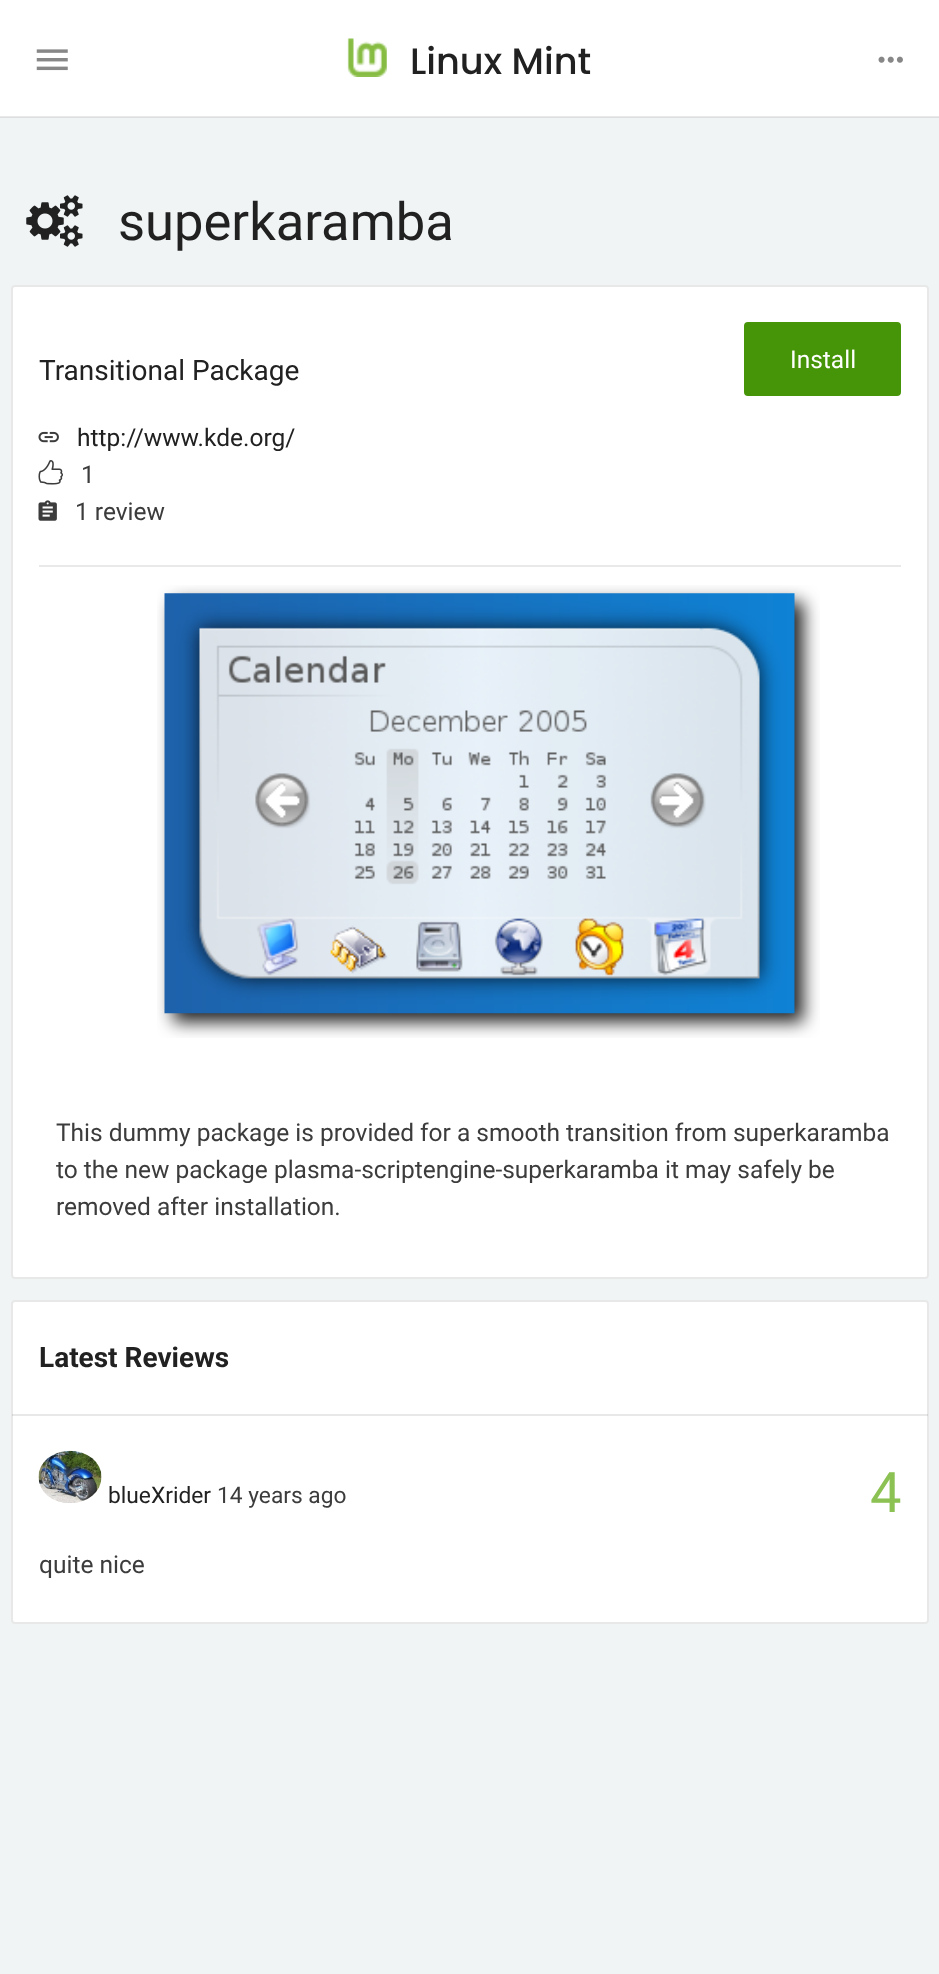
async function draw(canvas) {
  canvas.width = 939;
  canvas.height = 1974;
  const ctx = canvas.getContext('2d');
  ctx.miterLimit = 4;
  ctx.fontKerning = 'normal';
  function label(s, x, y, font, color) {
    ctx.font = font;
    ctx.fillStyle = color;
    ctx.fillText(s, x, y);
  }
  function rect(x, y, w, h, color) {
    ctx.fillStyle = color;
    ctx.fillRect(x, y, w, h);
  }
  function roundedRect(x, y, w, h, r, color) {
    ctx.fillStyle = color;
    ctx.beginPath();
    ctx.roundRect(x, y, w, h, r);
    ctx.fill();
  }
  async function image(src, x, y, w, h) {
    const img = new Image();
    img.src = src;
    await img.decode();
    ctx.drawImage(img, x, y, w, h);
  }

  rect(0, 0, 939, 1974, '#f0f4f5');
  rect(0, 0, 939, 116, '#fff');
  rect(0, 116, 939, 1, '#e9e9e9');
  await image('assets/img1.png', 36, 49, 32, 22);
  await image('assets/img2.png', 347, 38, 40, 39);
  label('Linux Mint', 410, 74, '500 36.75px Poppins', '#212121');
  await image('assets/img3.png', 878, 56, 25, 7);
  rect(0, 117, 939, 1, '#dbdfe0');
  await image('assets/img4.png', 26, 195, 57, 52);
  label('superkaramba', 118, 240, '52.5px Roboto', '#212121');
  roundedRect(11, 285, 918, 994, 4, '#fff');
  ctx.beginPath();
  ctx.roundRect(12, 286, 916, 992, 3);
  ctx.strokeStyle = '#2121211a';
  ctx.lineWidth = 2;
  ctx.stroke();
  label('Transitional Package', 39, 380, '28px Roboto', '#212121');
  await image('assets/img5.png', 38, 431, 21, 12);
  label('http://www.kde.org/', 77, 446, '24.5px Roboto', '#212121');
  await image('assets/img6.png', 38, 460, 25, 25);
  label('1', 81, 483, '24.5px Roboto', '#3c3c3c');
  await image('assets/img7.png', 38, 500, 19, 21);
  label('1 review', 75, 520, '24.5px Roboto', '#3c3c3c');
  ctx.fillStyle = '#469408';
  ctx.beginPath();
  ctx.roundRect(745, 323, 155, 72, 3);
  ctx.fill();
  ctx.strokeStyle = '#469408';
  ctx.stroke();
  label('Install', 790, 368, '24.5px Roboto', '#fff');
  rect(39, 565, 862, 2, '#e9e9e9');
  await image('assets/img8.png', 157, 585, 663, 453);
  label('This dummy package is provided for a smooth transition from superkaramba', 56, 1141, '24.5px Roboto', '#3c3c3c');
  label('to the new package plasma-scriptengine-superkaramba it may safely be', 56, 1178, '24.5px Roboto', '#3c3c3c');
  label('removed after installation.', 56, 1215, '24.5px Roboto', '#3c3c3c');
  roundedRect(11, 1300, 918, 324, 4, '#fff');
  ctx.beginPath();
  ctx.roundRect(12, 1301, 916, 322, 3);
  ctx.strokeStyle = '#2121211a';
  ctx.stroke();
  rect(12, 1414, 916, 2, '#2121211a');
  label('Latest Reviews', 39, 1367, 'bold 28px Roboto', '#212121');
  await image('assets/img9.png', 38, 1450, 64, 53);
  label('blueXrider', 108, 1503, '22.75px Roboto', '#212121');
  label('14 years ago', 217, 1503, '22.75px Roboto', '#3c3c3c');
  label('4', 870, 1512, '56px Roboto', '#8cc153');
  label('quite nice', 39, 1573, '24.5px Roboto', '#3c3c3c');
}

draw(document.querySelector('canvas'));
